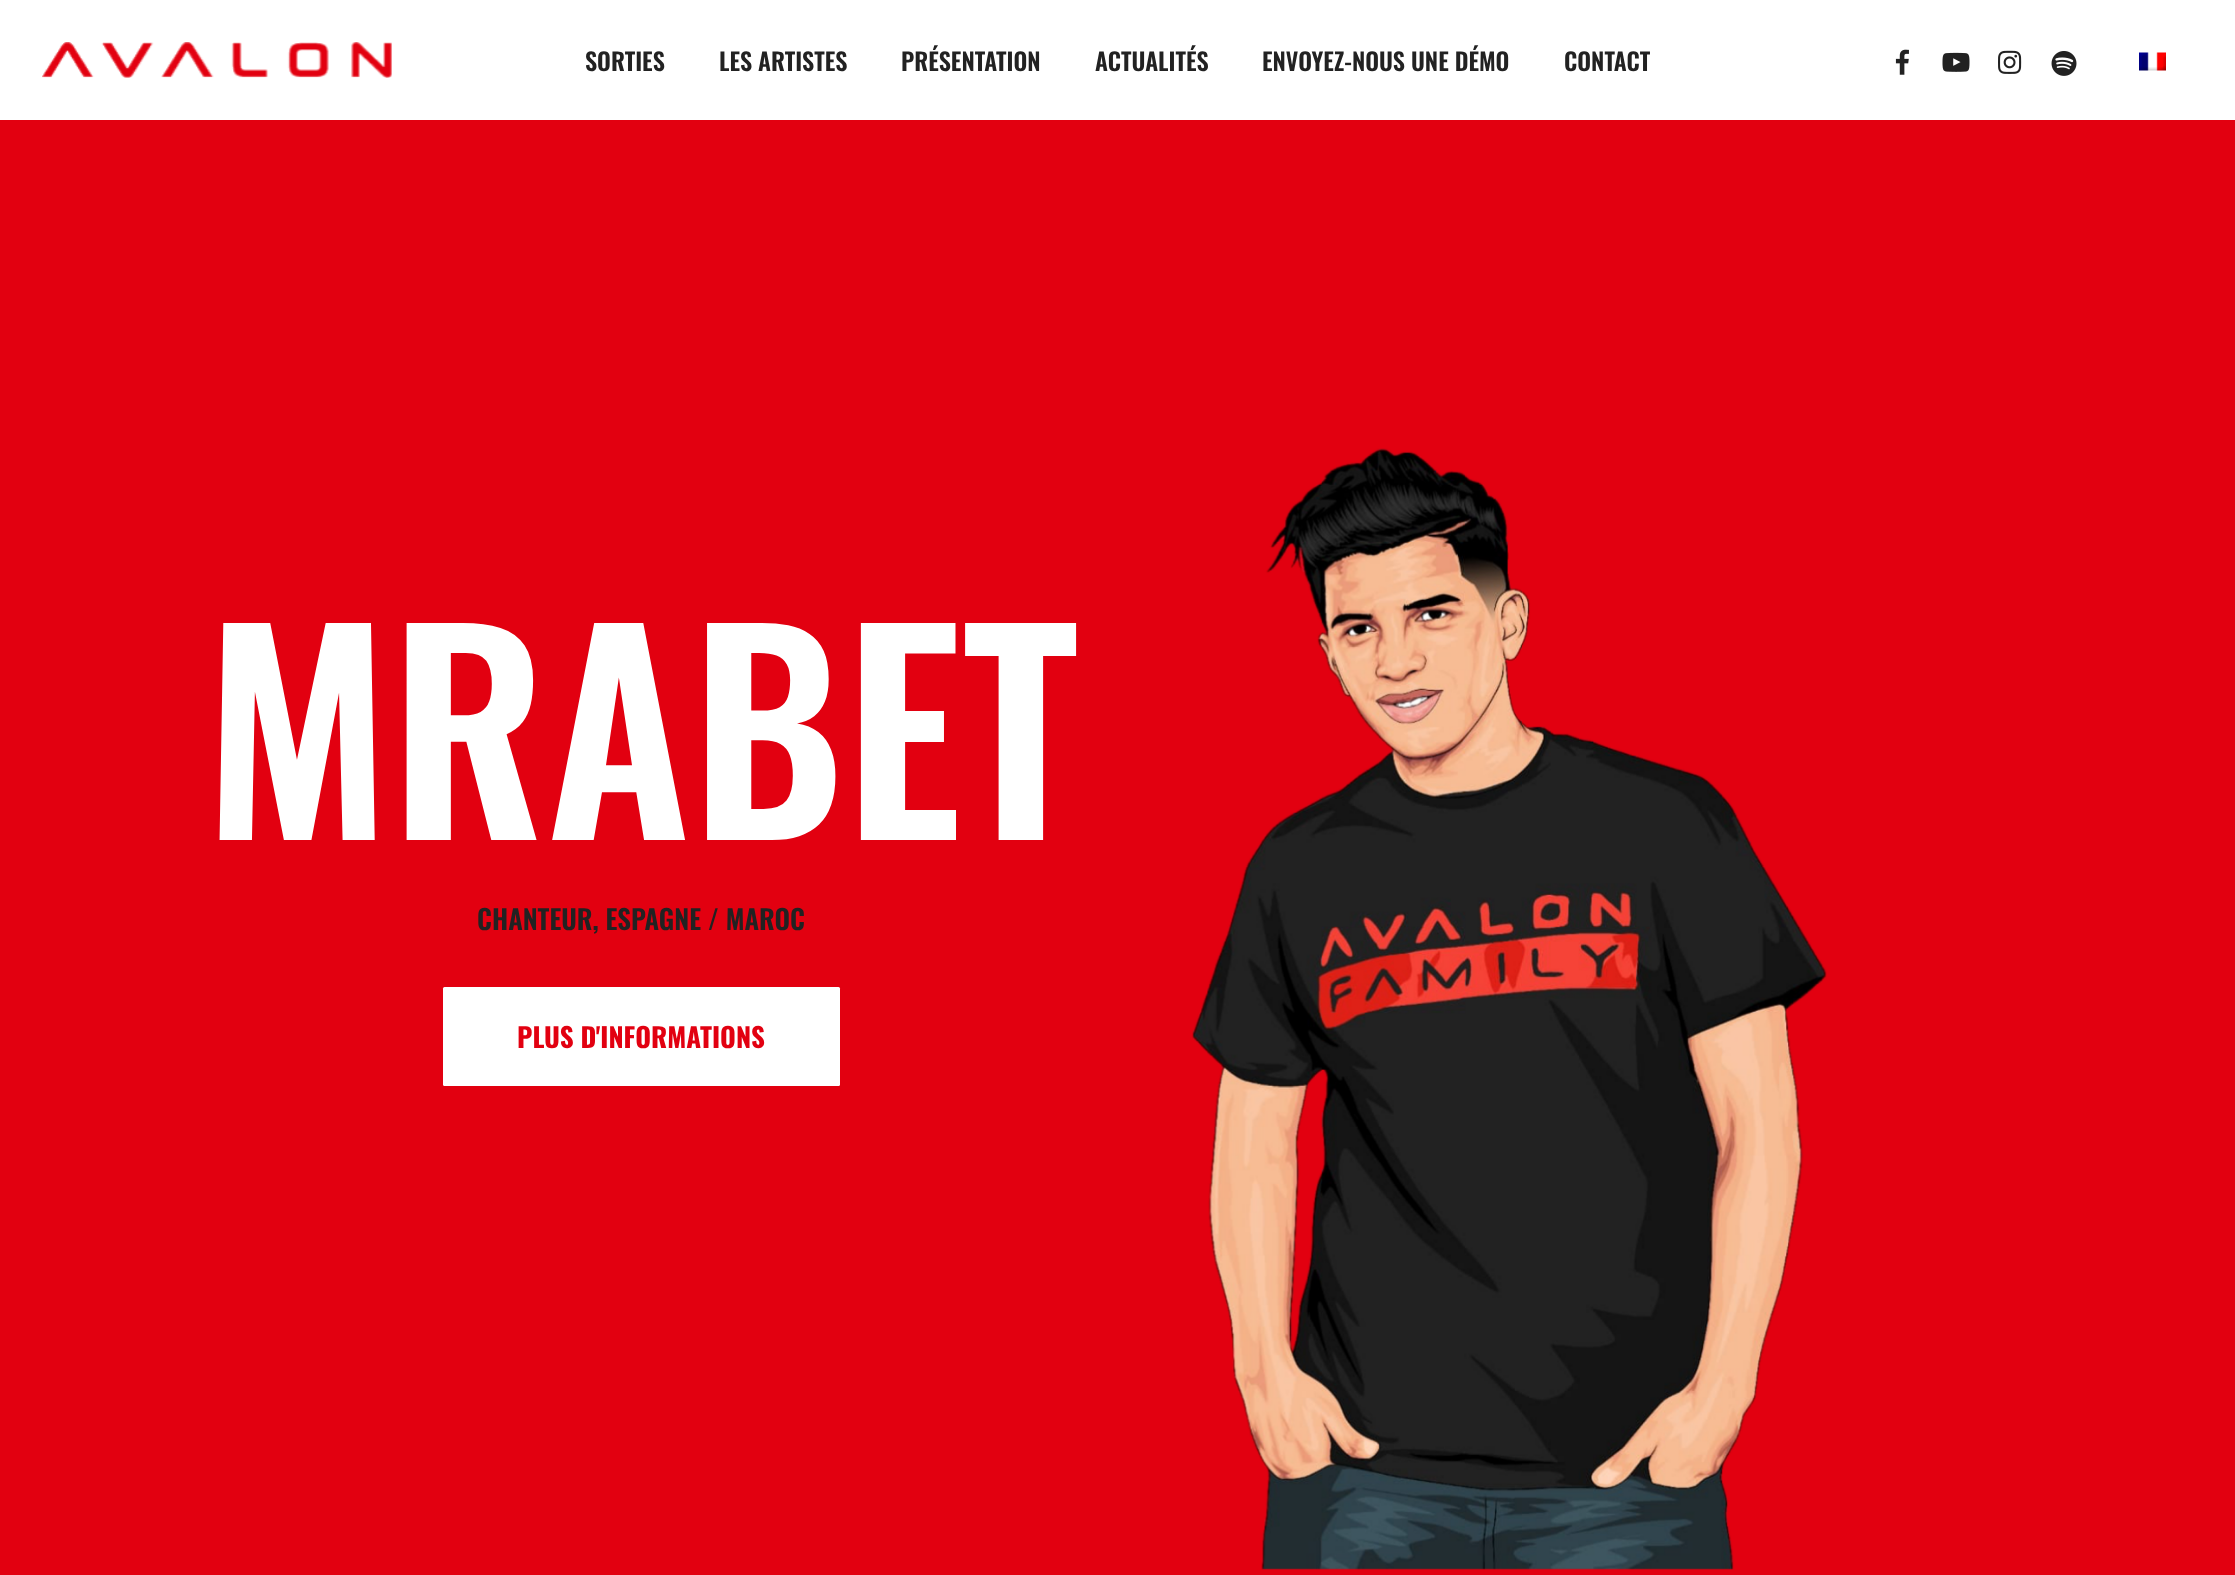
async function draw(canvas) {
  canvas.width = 2235;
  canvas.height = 1575;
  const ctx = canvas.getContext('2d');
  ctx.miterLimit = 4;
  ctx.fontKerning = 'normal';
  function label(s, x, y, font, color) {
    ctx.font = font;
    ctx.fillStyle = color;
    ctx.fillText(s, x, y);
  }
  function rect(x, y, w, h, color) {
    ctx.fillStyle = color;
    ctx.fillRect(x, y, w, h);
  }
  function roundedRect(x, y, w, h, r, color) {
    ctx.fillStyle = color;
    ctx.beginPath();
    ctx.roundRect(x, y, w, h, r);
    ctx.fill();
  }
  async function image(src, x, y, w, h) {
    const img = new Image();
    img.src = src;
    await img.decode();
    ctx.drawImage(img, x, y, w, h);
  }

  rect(0, 0, 2235, 1575, '#fff');
  await image('assets/img1.png', 42, 42, 350, 36);
  label('SORTIES', 585, 71, '600 24px Oswald', '#222');
  label('LES ARTISTES', 719, 71, '600 24px Oswald', '#222');
  label('PRÉSENTATION', 901, 71, '600 24px Oswald', '#222');
  label('ACTUALITÉS', 1095, 71, '600 24px Oswald', '#222');
  label('ENVOYEZ-NOUS UNE DÉMO', 1262, 71, '600 24px Oswald', '#222');
  label('CONTACT', 1564, 71, '600 24px Oswald', '#222');
  await image('assets/img2.png', 1895, 49, 14, 26);
  await image('assets/img3.png', 1942, 52, 28, 20);
  await image('assets/img4.png', 1998, 50, 24, 24);
  await image('assets/img5.png', 2051, 51, 26, 25);
  await image('assets/img6.png', 2139, 52, 27, 19);
  rect(0, 120, 2235, 1455, '#e20010');
  label('MRABET', 204, 840, '600 268px Oswald', '#fff');
  label('CHANTEUR, ESPAGNE / MAROC', 477, 930, '600 27px Oswald', '#222');
  roundedRect(443, 987, 397, 99, 1.5, '#fff');
  label('PLUS D\'INFORMATIONS', 517, 1048, 'bold 27px Oswald', '#e20010');
  await image('assets/img7.png', 1192, 448, 635, 1122);
}

draw(document.querySelector('canvas'));
